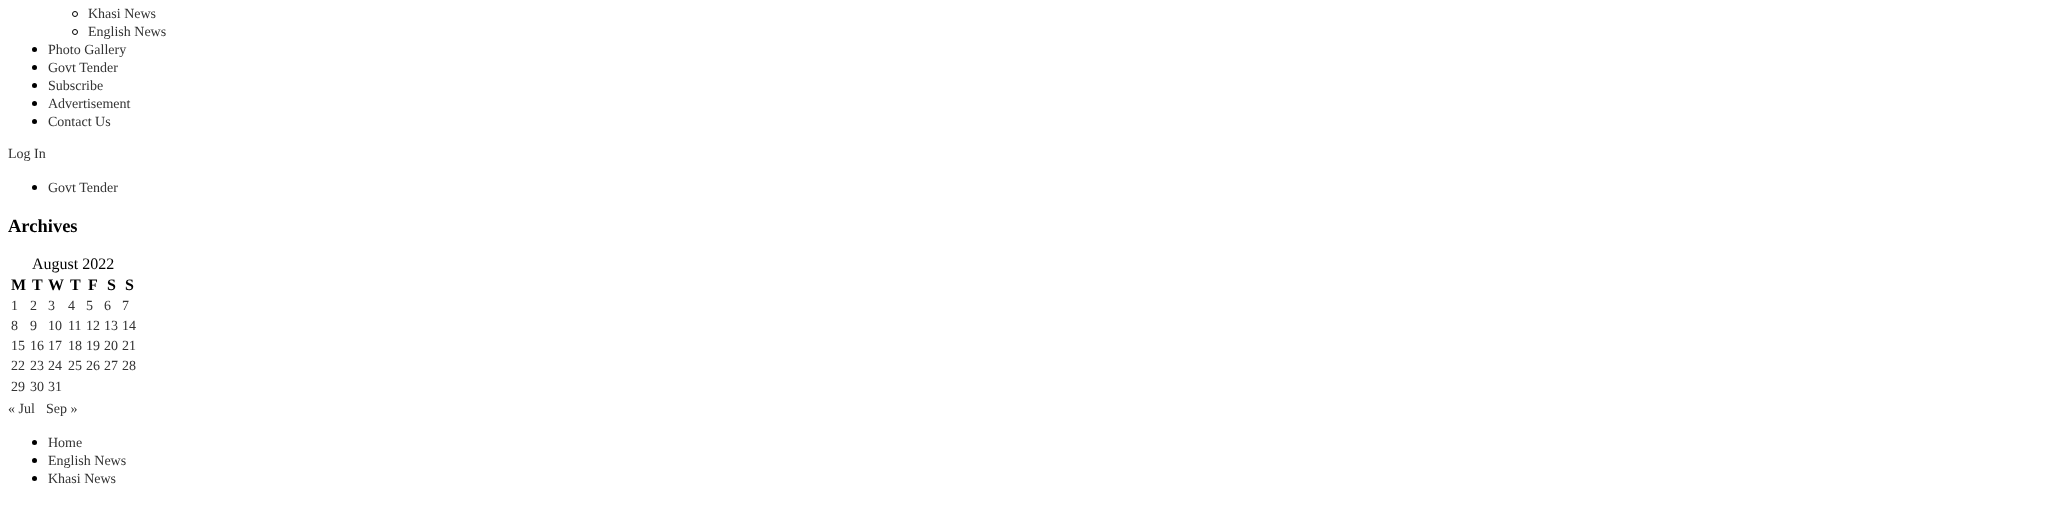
async function draw(canvas) {
  canvas.width = 2070;
  canvas.height = 505;
  const ctx = canvas.getContext('2d');
  ctx.miterLimit = 4;
  ctx.fontKerning = 'normal';
  function label(s, x, y, font, color) {
    ctx.font = font;
    ctx.fillStyle = color;
    ctx.fillText(s, x, y);
  }
  function rect(x, y, w, h, color) {
    ctx.fillStyle = color;
    ctx.fillRect(x, y, w, h);
  }

  rect(0, 0, 2070, 505, '#fff');
  ctx.beginPath();
  ctx.arc(75, 14, 2.5, 0, 2 * Math.PI);
  ctx.strokeStyle = '#000';
  ctx.stroke();
  label('Khasi News', 88, 18, '14px Liberation Serif', '#333');
  ctx.beginPath();
  ctx.arc(75, 32, 2.5, 0, 2 * Math.PI);
  ctx.stroke();
  label('English News', 88, 36, '14px Liberation Serif', '#333');
  ctx.fillStyle = '#000';
  ctx.beginPath();
  ctx.arc(34.5, 49.5, 2.5, 0, 2 * Math.PI);
  ctx.fill();
  label('Photo Gallery', 48, 54, '14px Liberation Serif', '#333');
  ctx.fillStyle = '#000';
  ctx.beginPath();
  ctx.arc(34.5, 67.5, 2.5, 0, 2 * Math.PI);
  ctx.fill();
  label('Govt Tender', 48, 72, '14px Liberation Serif', '#333');
  ctx.fillStyle = '#000';
  ctx.beginPath();
  ctx.arc(34.5, 85.5, 2.5, 0, 2 * Math.PI);
  ctx.fill();
  label('Subscribe', 48, 90, '14px Liberation Serif', '#333');
  ctx.fillStyle = '#000';
  ctx.beginPath();
  ctx.arc(34.5, 103.5, 2.5, 0, 2 * Math.PI);
  ctx.fill();
  label('Advertisement', 48, 108, '14px Liberation Serif', '#333');
  ctx.fillStyle = '#000';
  ctx.beginPath();
  ctx.arc(34.5, 121.5, 2.5, 0, 2 * Math.PI);
  ctx.fill();
  label('Contact Us', 48, 126, '14px Liberation Serif', '#333');
  label('Log In', 8, 158, '14px Liberation Serif', '#333');
  ctx.fillStyle = '#000';
  ctx.beginPath();
  ctx.arc(34.5, 187.5, 2.5, 0, 2 * Math.PI);
  ctx.fill();
  label('Govt Tender', 48, 192, '14px Liberation Serif', '#333');
  label('Archives', 8, 232, 'bold 18.5px Liberation Serif', '#000');
  label('August 2022', 32, 269, '16px Liberation Serif', '#000');
  label('M', 11, 290, 'bold 16px Liberation Serif', '#000');
  label('T', 32, 290, 'bold 16px Liberation Serif', '#000');
  label('W', 48, 290, 'bold 16px Liberation Serif', '#000');
  label('T', 70, 290, 'bold 16px Liberation Serif', '#000');
  label('F', 88, 290, 'bold 16px Liberation Serif', '#000');
  label('S', 107, 290, 'bold 16px Liberation Serif', '#000');
  label('S', 125, 290, 'bold 16px Liberation Serif', '#000');
  label('1', 11, 310, '14px Liberation Serif', '#333');
  label('2', 30, 310, '14px Liberation Serif', '#333');
  label('3', 48, 310, '14px Liberation Serif', '#333');
  label('4', 68, 310, '14px Liberation Serif', '#333');
  label('5', 86, 310, '14px Liberation Serif', '#333');
  label('6', 104, 310, '14px Liberation Serif', '#333');
  label('7', 122, 310, '14px Liberation Serif', '#333');
  label('8', 11, 330, '14px Liberation Serif', '#333');
  label('9', 30, 330, '14px Liberation Serif', '#333');
  label('10', 48, 330, '14px Liberation Serif', '#333');
  label('11', 68, 330, '14px Liberation Serif', '#333');
  label('12', 86, 330, '14px Liberation Serif', '#333');
  label('13', 104, 330, '14px Liberation Serif', '#333');
  label('14', 122, 330, '14px Liberation Serif', '#333');
  label('15', 11, 350, '14px Liberation Serif', '#333');
  label('16', 30, 350, '14px Liberation Serif', '#333');
  label('17', 48, 350, '14px Liberation Serif', '#333');
  label('18', 68, 350, '14px Liberation Serif', '#333');
  label('19', 86, 350, '14px Liberation Serif', '#333');
  label('20', 104, 350, '14px Liberation Serif', '#333');
  label('21', 122, 350, '14px Liberation Serif', '#333');
  label('22', 11, 370, '14px Liberation Serif', '#333');
  label('23', 30, 370, '14px Liberation Serif', '#333');
  label('24', 48, 370, '14px Liberation Serif', '#333');
  label('25', 68, 370, '14px Liberation Serif', '#333');
  label('26', 86, 370, '14px Liberation Serif', '#333');
  label('27', 104, 370, '14px Liberation Serif', '#333');
  label('28', 122, 370, '14px Liberation Serif', '#333');
  label('29', 11, 391, '14px Liberation Serif', '#333');
  label('30', 30, 391, '14px Liberation Serif', '#333');
  label('31', 48, 391, '14px Liberation Serif', '#333');
  label('« Jul', 8, 413, '14px Liberation Serif', '#333');
  label('Sep »', 46, 413, '14px Liberation Serif', '#333');
  ctx.fillStyle = '#000';
  ctx.beginPath();
  ctx.arc(34.5, 442.5, 2.5, 0, 2 * Math.PI);
  ctx.fill();
  label('Home', 48, 447, '14px Liberation Serif', '#333');
  ctx.fillStyle = '#000';
  ctx.beginPath();
  ctx.arc(34.5, 460.5, 2.5, 0, 2 * Math.PI);
  ctx.fill();
  label('English News', 48, 465, '14px Liberation Serif', '#333');
  ctx.fillStyle = '#000';
  ctx.beginPath();
  ctx.arc(34.5, 478.5, 2.5, 0, 2 * Math.PI);
  ctx.fill();
  label('Khasi News', 48, 483, '14px Liberation Serif', '#333');
}

draw(document.querySelector('canvas'));
